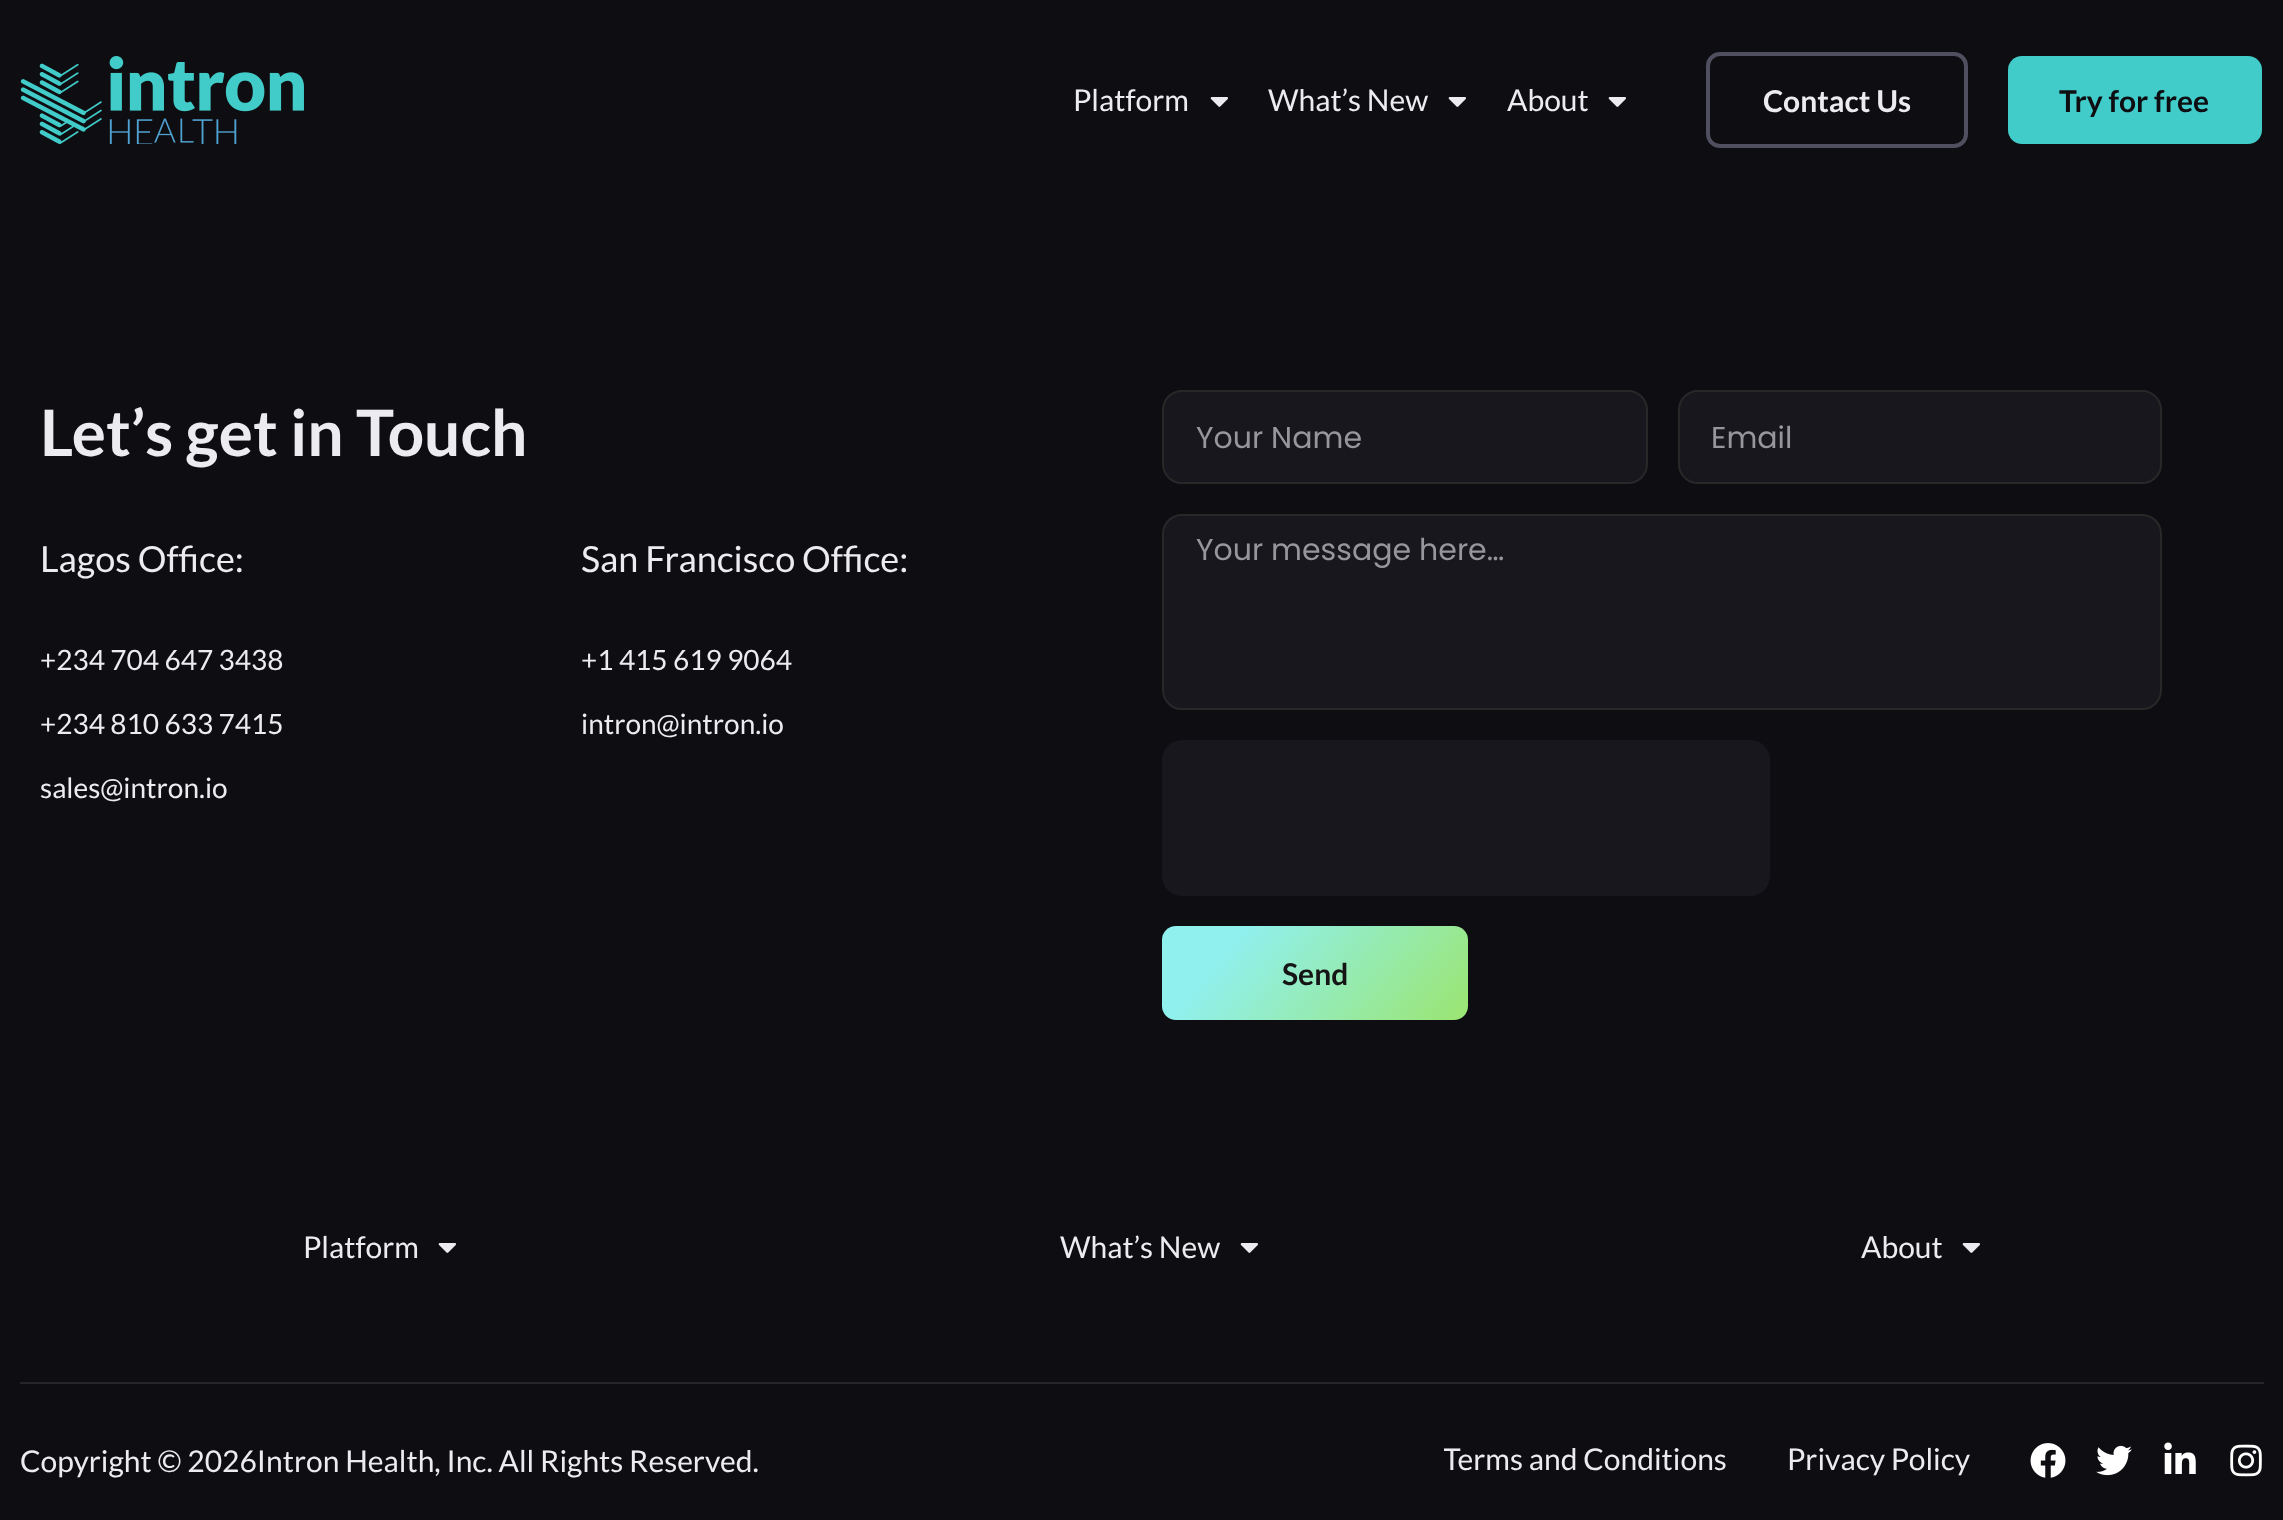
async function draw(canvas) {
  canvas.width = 2283;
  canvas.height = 1520;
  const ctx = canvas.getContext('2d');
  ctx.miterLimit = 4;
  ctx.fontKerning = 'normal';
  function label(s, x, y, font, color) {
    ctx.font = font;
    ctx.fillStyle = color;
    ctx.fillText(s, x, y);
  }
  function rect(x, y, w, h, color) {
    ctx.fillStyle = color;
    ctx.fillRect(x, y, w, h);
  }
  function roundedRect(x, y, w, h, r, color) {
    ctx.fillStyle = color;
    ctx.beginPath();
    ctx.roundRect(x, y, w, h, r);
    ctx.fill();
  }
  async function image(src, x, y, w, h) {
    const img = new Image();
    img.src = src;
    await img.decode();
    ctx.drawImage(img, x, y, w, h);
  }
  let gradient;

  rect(0, 0, 2283, 1520, '#0e0e12');
  await image('assets/img1.png', 20, 56, 284, 88);
  label('Platform', 1073, 111, '30px Lato', '#ebebf0');
  await image('assets/img2.png', 1210, 97, 19, 10);
  label('What’s New', 1268, 111, '30px Lato', '#ebebf0');
  await image('assets/img2.png', 1448, 97, 19, 10);
  label('About', 1507, 111, '30px Lato', '#ebebf0');
  await image('assets/img2.png', 1608, 97, 19, 10);
  ctx.beginPath();
  ctx.roundRect(1708, 54, 258, 92, 12);
  ctx.strokeStyle = '#4f4f5f';
  ctx.lineWidth = 4;
  ctx.stroke();
  label('Contact Us', 1763, 112, 'bold 30px Lato', '#ebebf0');
  roundedRect(2008, 56, 254, 88, 14, '#41ccc9');
  label('Try for free', 2059, 112, 'bold 30px Lato', '#0e0e12');
  label('Let’s get in Touch', 40, 456, 'bold 64px Lato', '#ebebf0');
  label('Lagos Office:', 40, 572, '36px Lato', '#ebebf0');
  label('+234 704 647 3438', 40, 670, '28px Lato', '#ebebf0');
  label('+234 810 633 7415', 40, 734, '28px Lato', '#ebebf0');
  label('sales@intron.io', 40, 798, '28px Lato', '#ebebf0');
  label('San Francisco Office:', 581, 572, '36px Lato', '#ebebf0');
  label('+1 415 619 9064', 581, 670, '28px Lato', '#ebebf0');
  label('intron@intron.io', 581, 734, '28px Lato', '#ebebf0');
  ctx.fillStyle = '#17171d';
  ctx.beginPath();
  ctx.roundRect(1163, 391, 484, 92, 19);
  ctx.fill();
  ctx.strokeStyle = '#282828';
  ctx.lineWidth = 2;
  ctx.stroke();
  label('Your Name', 1196, 448, '30px Poppins', '#96969c');
  ctx.fillStyle = '#17171d';
  ctx.beginPath();
  ctx.roundRect(1679, 391, 482, 92, 19);
  ctx.fill();
  ctx.stroke();
  label('Email', 1711, 448, '30px Poppins', '#96969c');
  ctx.fillStyle = '#17171d';
  ctx.beginPath();
  ctx.roundRect(1163, 515, 998, 194, 19);
  ctx.fill();
  ctx.stroke();
  label('Your message here…', 1196, 560, '30px Poppins', '#96969c');
  roundedRect(1162, 740, 608, 156, 20, '#17171d');
  gradient = ctx.createLinearGradient(1202, 878, 1428, 1068);
  gradient.addColorStop(0.22, '#90f0ee');
  gradient.addColorStop(1, '#9be570');
  ctx.fillStyle = gradient;
  ctx.beginPath();
  ctx.roundRect(1162, 926, 306, 94, 14);
  ctx.fill();
  label('Send', 1282, 985, 'bold 30px Lato', '#151515');
  label('Platform', 303, 1258, '30px Lato', '#ebebf0');
  await image('assets/img2.png', 438, 1243, 19, 10);
  label('What’s New', 1060, 1258, '30px Lato', '#ebebf0');
  await image('assets/img2.png', 1240, 1243, 19, 10);
  label('About', 1861, 1258, '30px Lato', '#ebebf0');
  await image('assets/img2.png', 1962, 1243, 19, 10);
  rect(20, 1382, 2244, 2, '#26262a');
  label('Copyright © 2026Intron Health, Inc. All Rights Reserved.', 20, 1472, '30px Lato', '#ebebf0');
  ctx.save();
  ctx.beginPath();
  ctx.rect(1444, 1434, 526, 50);
  ctx.clip();
  label('Terms and Conditions', 1443, 1470, '30px Lato', '#ebebf0');
  ctx.restore();
  label('Privacy Policy', 1787, 1470, '30px Lato', '#ebebf0');
  await image('assets/img3.png', 2030, 1443, 36, 35);
  await image('assets/img4.png', 2096, 1445, 36, 31);
  await image('assets/img5.png', 2164, 1442, 32, 32);
  await image('assets/img6.png', 2230, 1444, 32, 33);
}

draw(document.querySelector('canvas'));
